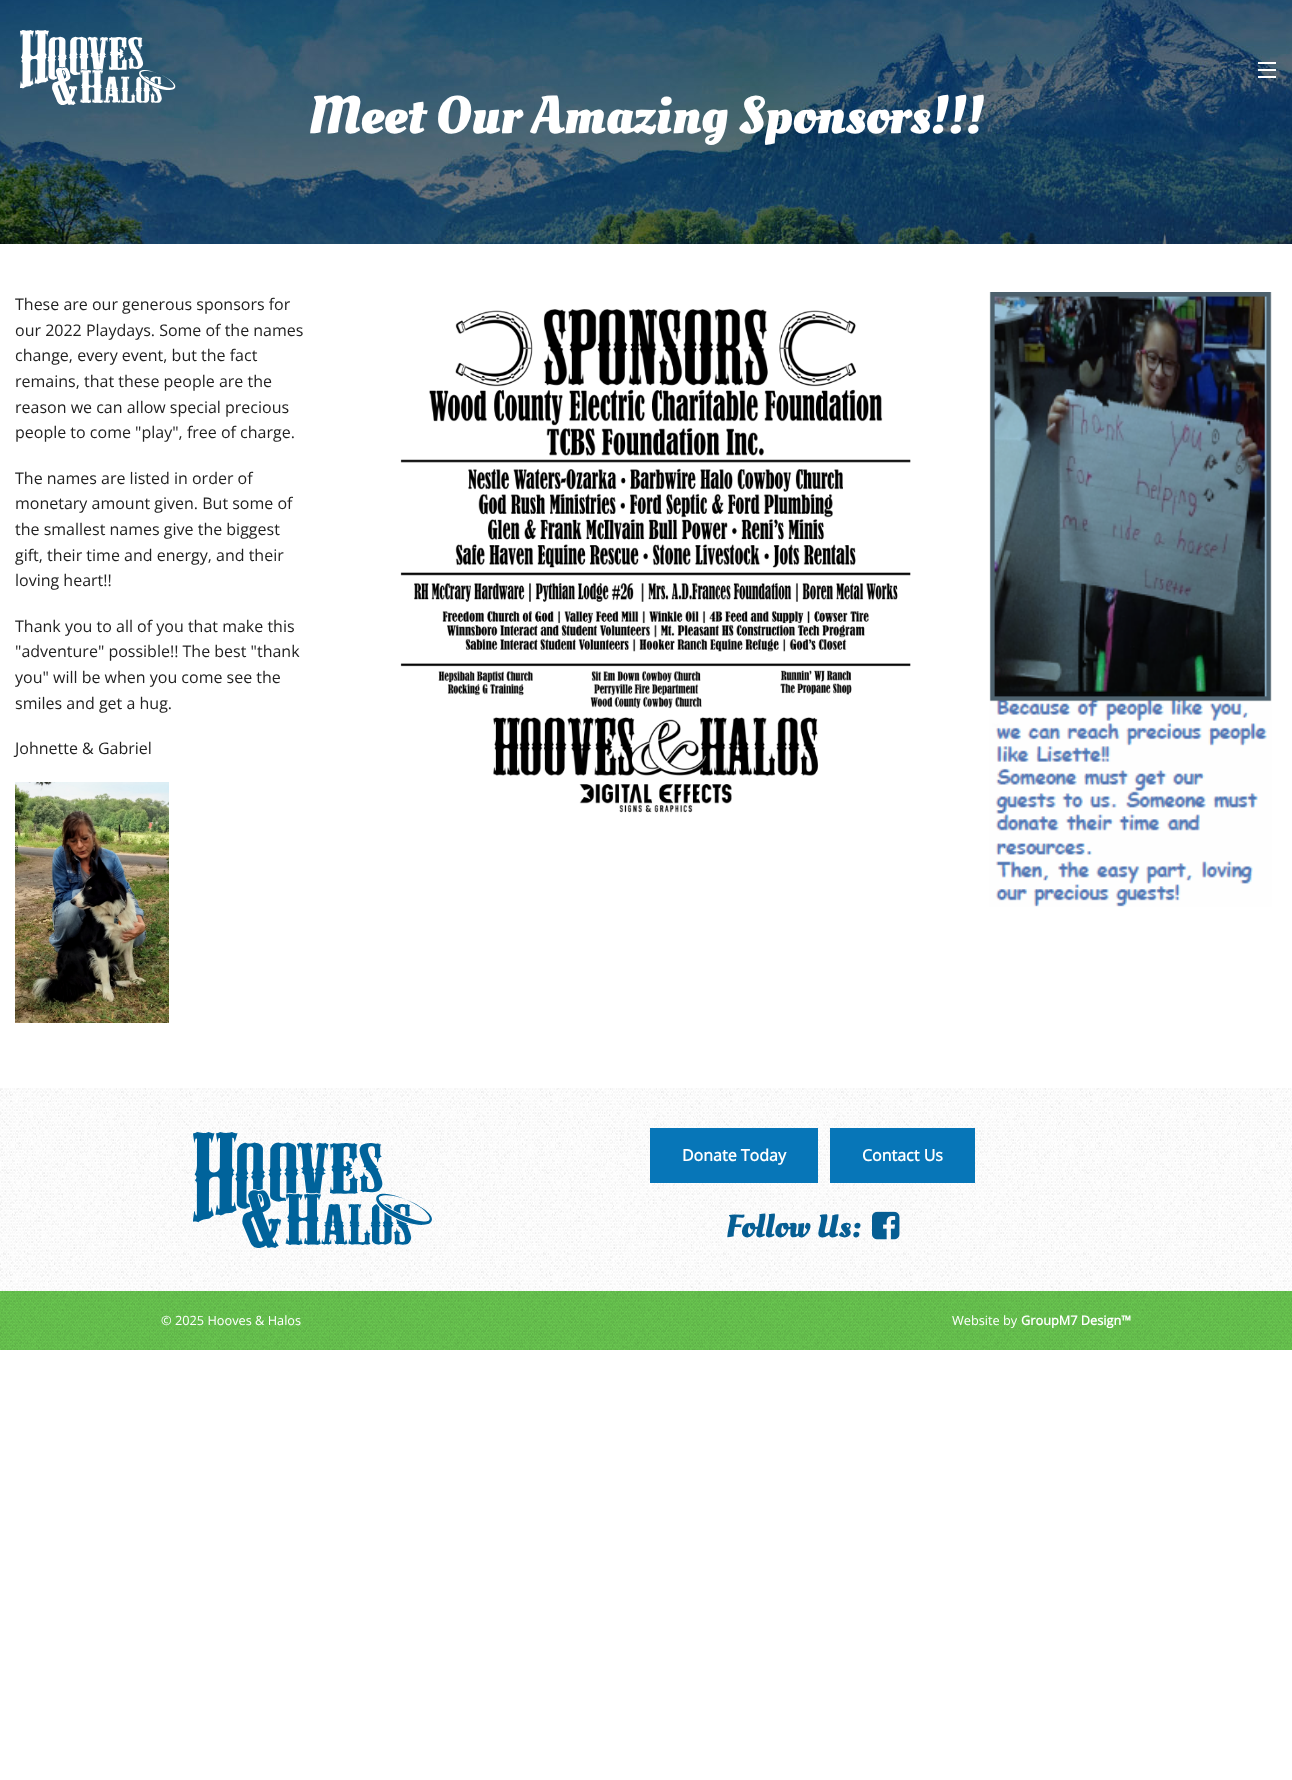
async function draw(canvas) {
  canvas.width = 1292;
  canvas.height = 1780;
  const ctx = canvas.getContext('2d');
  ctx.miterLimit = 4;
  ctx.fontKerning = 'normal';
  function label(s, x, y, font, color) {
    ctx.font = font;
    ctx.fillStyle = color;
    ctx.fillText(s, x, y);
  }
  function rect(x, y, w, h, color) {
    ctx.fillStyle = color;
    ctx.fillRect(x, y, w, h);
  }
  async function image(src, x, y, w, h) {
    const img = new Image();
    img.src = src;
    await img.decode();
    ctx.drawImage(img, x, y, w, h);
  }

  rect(0, 0, 1292, 1780, '#fff');
  await image('assets/img2.png', 0, 0, 1292, 244);
  await image('assets/img1.png', 20, 30, 156, 75);
  rect(1258, 76, 18, 2, '#fff');
  rect(1258, 69, 18, 2, '#fff');
  rect(1258, 62, 18, 2, '#fff');
  label('Meet Our Amazing Sponsors!!!', 308, 133, 'bold 53px Oleo Script', '#fff');
  label('These are our generous sponsors for', 15, 310, '16px Open Sans', '#222');
  label('our 2022 Playdays. Some of the names', 15, 336, '16px Open Sans', '#222');
  label('change, every event, but the fact', 15, 361, '16px Open Sans', '#222');
  label('remains, that these people are the', 15, 387, '16px Open Sans', '#222');
  label('reason we can allow special precious', 15, 413, '16px Open Sans', '#222');
  label('people to come "play", free of charge.', 15, 438, '16px Open Sans', '#222');
  label('The names are listed in order of', 15, 484, '16px Open Sans', '#222');
  label('monetary amount given. But some of', 15, 509, '16px Open Sans', '#222');
  label('the smallest names give the biggest', 15, 535, '16px Open Sans', '#222');
  label('gift, their time and energy, and their', 15, 561, '16px Open Sans', '#222');
  label('loving heart!!', 15, 586, '16px Open Sans', '#222');
  label('Thank you to all of you that make this', 15, 632, '16px Open Sans', '#222');
  label('"adventure" possible!! The best "thank', 15, 657, '16px Open Sans', '#222');
  label('you" will be when you come see the', 15, 683, '16px Open Sans', '#222');
  label('smiles and get a hug.', 15, 709, '16px Open Sans', '#222');
  label('Johnette & Gabriel', 15, 754, '16px Open Sans', '#222');
  await image('assets/img3.png', 15, 782, 154, 241);
  await image('assets/img4.png', 400, 309, 511, 504);
  await image('assets/img5.png', 989, 292, 283, 615);
  await image('assets/img6.png', 0, 1088, 1292, 203);
  await image('assets/img7.png', 193, 1132, 239, 116);
  rect(650, 1128, 168, 55, '#0776b8');
  label('Donate Today', 682, 1161, 'bold 16px Open Sans', '#fff');
  rect(830, 1128, 145, 55, '#0776b8');
  label('Contact Us', 862, 1161, 'bold 16px Open Sans', '#fff');
  label('Follow Us:', 726, 1237, 'bold 32px Oleo Script', '#065e93');
  await image('assets/img8.png', 872, 1211, 28, 29);
  await image('assets/img9.png', 0, 1291, 1292, 59);
  label('© 2025 Hooves & Halos', 161, 1325, '12.75px Open Sans', '#fff');
  label('Website by', 952, 1325, '12.75px Open Sans', '#fff');
  label('GroupM7 Design™', 1021, 1325, 'bold 12.75px Open Sans', '#fff');
}

draw(document.querySelector('canvas'));
